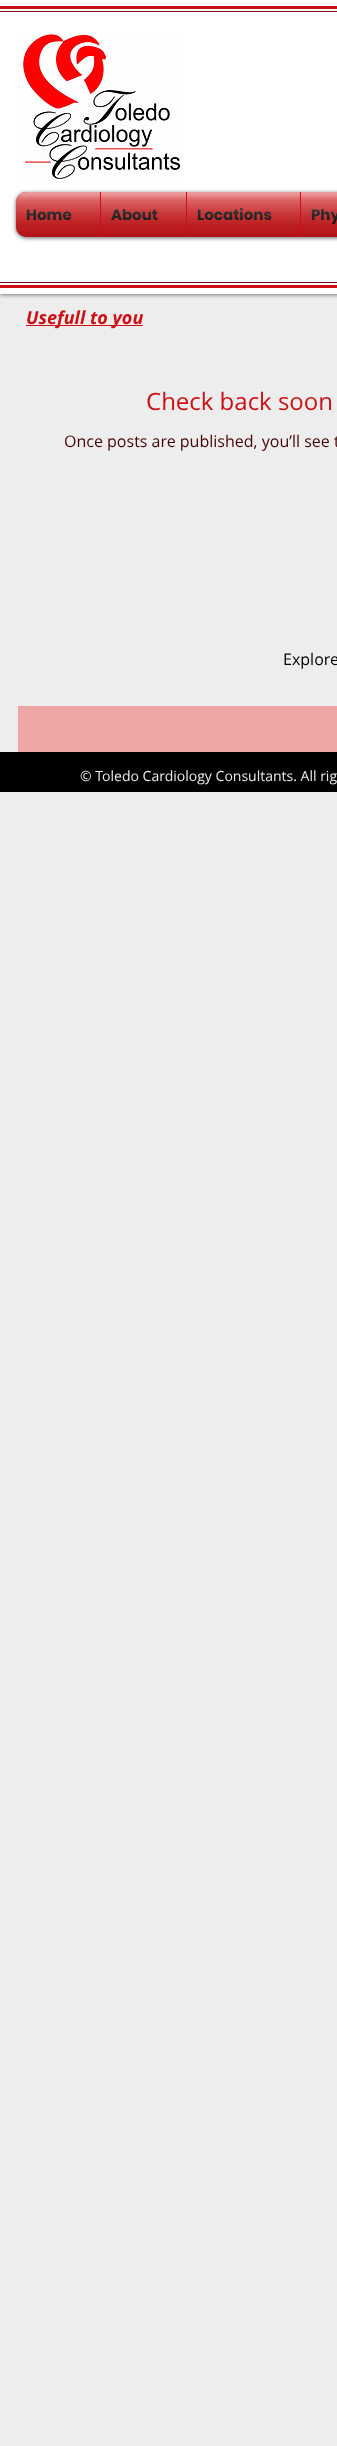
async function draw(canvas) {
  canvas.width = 337;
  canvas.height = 2446;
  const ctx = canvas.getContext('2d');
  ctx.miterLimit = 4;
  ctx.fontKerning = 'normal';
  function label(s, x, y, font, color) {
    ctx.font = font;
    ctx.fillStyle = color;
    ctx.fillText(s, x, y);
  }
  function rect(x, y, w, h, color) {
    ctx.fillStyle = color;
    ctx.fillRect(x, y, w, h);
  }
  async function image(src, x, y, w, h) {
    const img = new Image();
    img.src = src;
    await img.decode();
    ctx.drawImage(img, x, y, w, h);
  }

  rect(0, 0, 337, 2446, '#ededed');
  ctx.fillStyle = '#000000b3';
  ctx.filter = 'blur(2.5px)';
  ctx.beginPath();
  ctx.rect(0, 0, 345, 294);
  ctx.fill();
  ctx.filter = 'none';
  rect(0, 0, 337, 294, '#fff');
  rect(0, 6, 337, 3, '#cc1013');
  rect(0, 285, 337, 3, '#cc1013');
  rect(0, 11, 337, 1, '#880a0c');
  rect(0, 282, 337, 1, '#880a0c');
  await image('assets/img1.png', 21, 32, 161, 148);
  ctx.fillStyle = '#00000099';
  ctx.filter = 'blur(2px)';
  ctx.beginPath();
  ctx.roundRect(16, 193, 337, 45, 10);
  ctx.fill();
  ctx.filter = 'none';
  await image('assets/img2.png', 16, 192, 10, 45);
  await image('assets/img3.png', 16, 227, 10, 10);
  ctx.fillStyle = '#cc1013';
  ctx.beginPath();
  ctx.roundRect(16, 192, 84, 45, [10, 0, 0, 10]);
  ctx.fill();
  label('Home', 26, 220, 'bold 15px Poppins', '#000');
  await image('assets/img4.png', 16, 192, 84, 45);
  await image('assets/img5.png', 16, 203, 84, 34);
  rect(100, 192, 237, 45, '#cc1013');
  label('About', 111, 220, 'bold 15px Poppins', '#000');
  await image('assets/img6.png', 101, 192, 85, 45);
  await image('assets/img7.png', 101, 203, 85, 34);
  label('Locations', 197, 220, 'bold 15px Poppins', '#000');
  await image('assets/img8.png', 187, 192, 113, 45);
  await image('assets/img9.png', 187, 203, 113, 34);
  label('Phy', 311, 220, 'bold 15px Poppins', '#000');
  await image('assets/img10.png', 301, 192, 36, 45);
  await image('assets/img11.png', 301, 203, 36, 34);
  rect(26, 325, 117, 1, '#cc1013');
  label('Usefull to you', 26, 324, 'italic bold 18px Open Sans', '#cc1013');
  label('Check back soon', 146, 410, '24px Open Sans', '#cc1013');
  label('Once posts are published, you’ll see t', 64, 447, '16px Open Sans', '#440506');
  rect(18, 706, 319, 46, '#eda5a6');
  label('Explore', 283, 665, '16px Open Sans', '#000');
  rect(0, 752, 337, 40, '#000');
  label('© Toledo Cardiology Consultants. All rig', 80, 781, '14px Open Sans', '#ededed');
}

draw(document.querySelector('canvas'));
